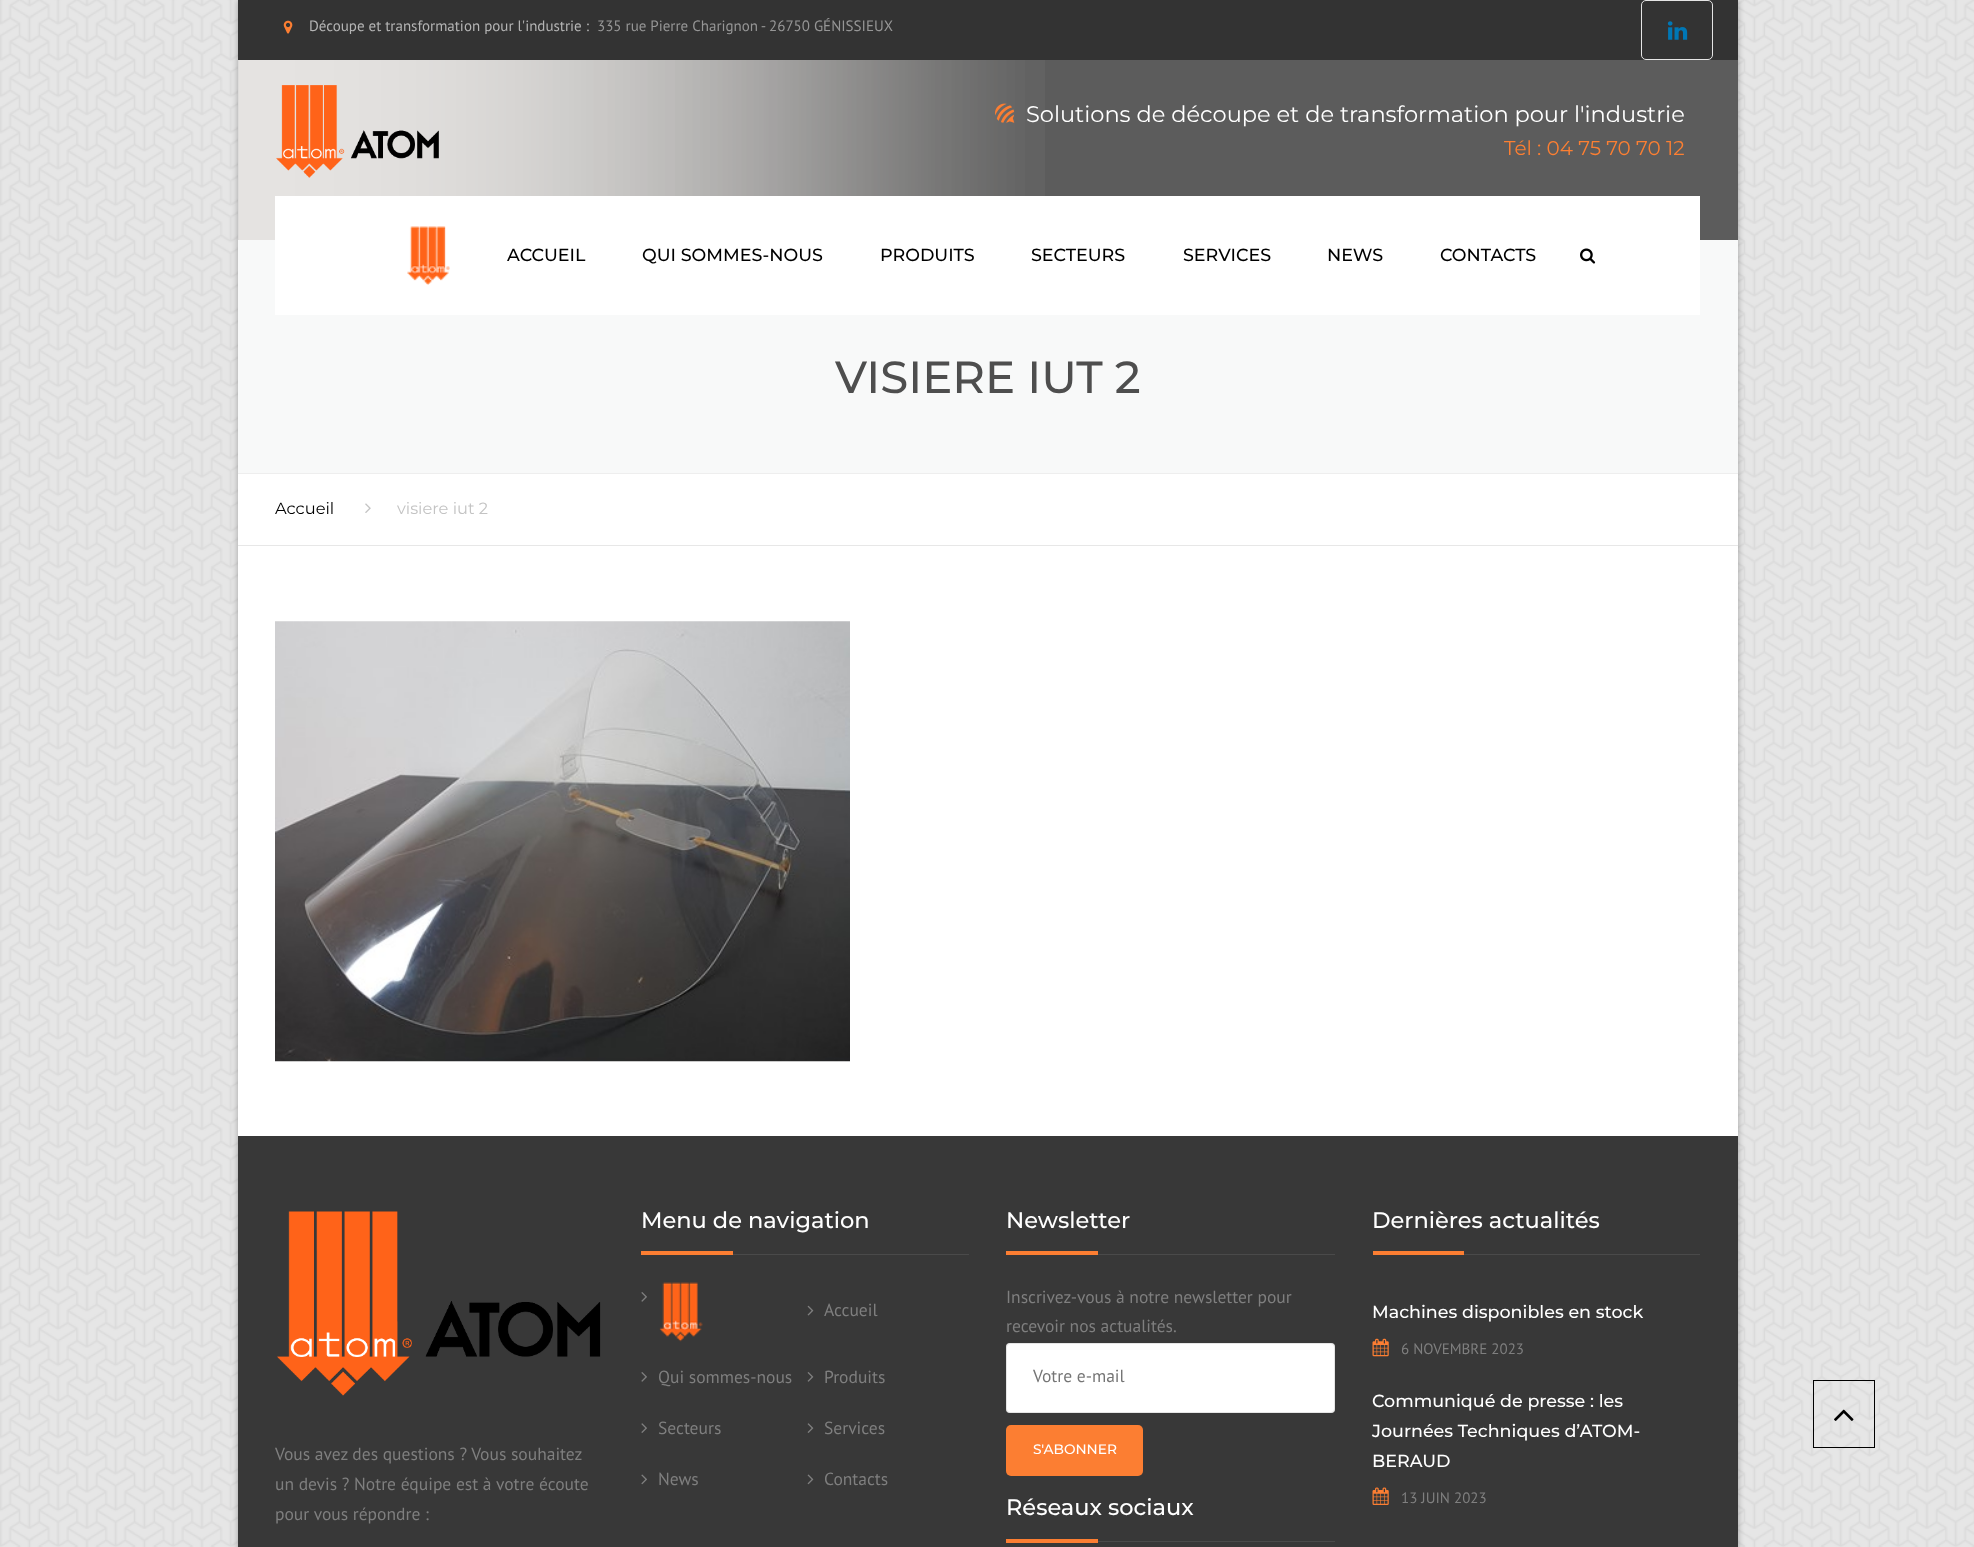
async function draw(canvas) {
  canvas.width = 1974;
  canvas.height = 1547;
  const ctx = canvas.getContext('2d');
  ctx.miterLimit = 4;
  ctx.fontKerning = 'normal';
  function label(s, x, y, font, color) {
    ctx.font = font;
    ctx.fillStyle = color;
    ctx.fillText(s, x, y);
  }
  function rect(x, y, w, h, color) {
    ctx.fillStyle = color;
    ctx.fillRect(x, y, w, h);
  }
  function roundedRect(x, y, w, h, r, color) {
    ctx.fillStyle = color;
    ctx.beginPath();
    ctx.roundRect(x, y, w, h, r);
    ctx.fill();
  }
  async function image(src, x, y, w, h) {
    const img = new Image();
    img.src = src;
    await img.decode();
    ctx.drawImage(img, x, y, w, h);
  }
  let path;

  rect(0, 0, 1974, 1547, '#fff');
  await image('assets/img1.png', 0, 0, 1974, 1547);
  ctx.fillStyle = '#0000004d';
  ctx.filter = 'blur(3px)';
  ctx.beginPath();
  ctx.rect(238, 0, 1500, 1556);
  ctx.fill();
  ctx.filter = 'none';
  rect(238, 0, 1500, 60, '#333');
  await image('assets/img2.png', 283, 20, 10, 14);
  label('Découpe et transformation pour l\'industrie :', 309, 31, '15px PT Sans', '#b5b5b5');
  label('335 rue Pierre Charignon - 26750 GÉNISSIEUX', 597, 31, '15px PT Sans', '#969696');
  ctx.beginPath();
  ctx.roundRect(1641.5, 0.5, 71, 59, 4.5);
  ctx.strokeStyle = '#e5e5e5';
  ctx.stroke();
  await image('assets/img3.png', 1667, 21, 21, 19);
  rect(1045, 60, 693, 180, '#5c5c5c');
  await image('assets/img4.png', 238, 60, 807, 180);
  await image('assets/img5.png', 276, 85, 163, 93);
  await image('assets/img6.png', 995, 103, 20, 20);
  label('Solutions de découpe et de transformation pour l\'industrie', 1026, 122, '22.5px Montserrat', '#fff');
  label('Tél : 04 75 70 70 12', 1504, 155, '20px Montserrat', '#fc7f32');
  rect(238, 474, 1500, 662, '#fff');
  ctx.save();
  path = new Path2D('M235 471H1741V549H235ZM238 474H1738V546H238Z');
  ctx.clip(path, 'evenodd');
  ctx.fillStyle = '#00000024';
  ctx.filter = 'blur(0.5px)';
  ctx.beginPath();
  ctx.rect(238, 474, 1500, 72);
  ctx.fill();
  ctx.filter = 'none';
  ctx.restore();
  rect(238, 240, 1500, 233, '#f8f9f9');
  rect(275, 196, 1425, 119, '#fff');
  await image('assets/img7.png', 407, 226, 43, 59);
  label('ACCUEIL', 507, 261, '500 17.5px Montserrat', '#000');
  label('QUI SOMMES-NOUS', 642, 261, '500 17.5px Montserrat', '#000');
  label('PRODUITS', 880, 261, '500 17.5px Montserrat', '#000');
  label('SECTEURS', 1031, 261, '500 17.5px Montserrat', '#000');
  label('SERVICES', 1183, 261, '500 17.5px Montserrat', '#000');
  label('NEWS', 1327, 261, '500 17.5px Montserrat', '#000');
  label('CONTACTS', 1440, 261, '500 17.5px Montserrat', '#000');
  await image('assets/img8.png', 1580, 248, 16, 16);
  rect(238, 473, 1500, 1, '#eee');
  label('VISIERE IUT 2', 835, 393, '500 45px Montserrat', '#4e4e4e');
  rect(238, 545, 1500, 1, '#e7e7e7');
  label('Accueil', 275, 514, '16.25px Montserrat', '#000');
  await image('assets/img9.png', 365, 503, 6, 10);
  label('visiere iut 2', 397, 514, '16.25px Montserrat', '#c3c3c3');
  await image('assets/img10.png', 275, 621, 575, 441);
  rect(238, 1136, 1500, 411, '#383838');
  await image('assets/img11.png', 277, 1211, 324, 185);
  label('Vous avez des questions ? Vous souhaitez', 275, 1460, '17.5px PT Sans', '#7f7f7f');
  label('un devis ? Notre équipe est à votre écoute', 275, 1490, '17.5px PT Sans', '#7f7f7f');
  label('pour vous répondre :', 275, 1520, '17.5px PT Sans', '#7f7f7f');
  rect(733, 1254, 236, 1, '#4a4a4a');
  label('Menu de navigation', 641, 1228, '500 22.5px Montserrat', '#fff');
  rect(641, 1251, 92, 4, '#fc7e32');
  await image('assets/img12.png', 641, 1292, 6, 10);
  await image('assets/img13.png', 659, 1282, 44, 60);
  await image('assets/img14.png', 807, 1305, 7, 11);
  label('Accueil', 824, 1316, '17.5px PT Sans', '#7f7f7f');
  await image('assets/img12.png', 641, 1372, 6, 10);
  label('Qui sommes-nous', 658, 1383, '17.5px PT Sans', '#7f7f7f');
  await image('assets/img15.png', 807, 1372, 7, 10);
  label('Produits', 824, 1383, '17.5px PT Sans', '#7f7f7f');
  await image('assets/img16.png', 641, 1423, 6, 10);
  label('Secteurs', 658, 1434, '17.5px PT Sans', '#7f7f7f');
  await image('assets/img17.png', 807, 1423, 7, 10);
  label('Services', 824, 1434, '17.5px PT Sans', '#7f7f7f');
  await image('assets/img18.png', 641, 1474, 6, 11);
  label('News', 658, 1485, '17.5px PT Sans', '#7f7f7f');
  await image('assets/img19.png', 807, 1474, 7, 11);
  label('Contacts', 824, 1485, '17.5px PT Sans', '#7f7f7f');
  rect(1098, 1254, 237, 1, '#4a4a4a');
  label('Newsletter', 1006, 1228, '500 22.5px Montserrat', '#fff');
  rect(1006, 1251, 92, 4, '#fc7e32');
  label('Inscrivez-vous à notre newsletter pour', 1006, 1303, '17.5px PT Sans', '#7f7f7f');
  label('recevoir nos actualités.', 1006, 1332, '17.5px PT Sans', '#7f7f7f');
  roundedRect(1006, 1343, 329, 70, 4, '#fff');
  ctx.beginPath();
  ctx.roundRect(1006.5, 1343.5, 328, 69, 3.5);
  ctx.strokeStyle = '#0000001a';
  ctx.stroke();
  label('Votre e-mail', 1033, 1382, '17.5px PT Sans', '#757575');
  roundedRect(1006, 1425, 137, 51, 5, '#fc7e32');
  label('S\'ABONNER', 1033, 1454, '500 13.75px Montserrat', '#fff');
  rect(1098, 1541, 237, 1, '#4a4a4a');
  label('Réseaux sociaux', 1006, 1515, '500 22.5px Montserrat', '#fff');
  rect(1006, 1539, 92, 4, '#fc7e32');
  rect(1464, 1254, 236, 1, '#4a4a4a');
  label('Dernières actualités', 1372, 1228, '500 22.5px Montserrat', '#fff');
  rect(1373, 1251, 91, 4, '#fc7e32');
  label('Machines disponibles en stock', 1372, 1318, '500 17.5px Montserrat', '#fff');
  await image('assets/img20.png', 1372, 1338, 17, 19);
  label('6 NOVEMBRE 2023', 1401, 1354, '15px PT Sans', '#7f7f7f');
  label('Communiqué de presse : les', 1372, 1407, '500 17.5px Montserrat', '#fff');
  label('Journées Techniques d’ATOM-', 1372, 1437, '500 17.5px Montserrat', '#fff');
  label('BERAUD', 1372, 1467, '500 17.5px Montserrat', '#fff');
  await image('assets/img21.png', 1372, 1487, 17, 18);
  label('13 JUIN 2023', 1401, 1503, '15px PT Sans', '#7f7f7f');
  ctx.strokeStyle = '#000';
  ctx.strokeRect(1813.5, 1380.5, 61, 67);
  await image('assets/img22.png', 1834, 1409, 20, 12);
}

draw(document.querySelector('canvas'));
